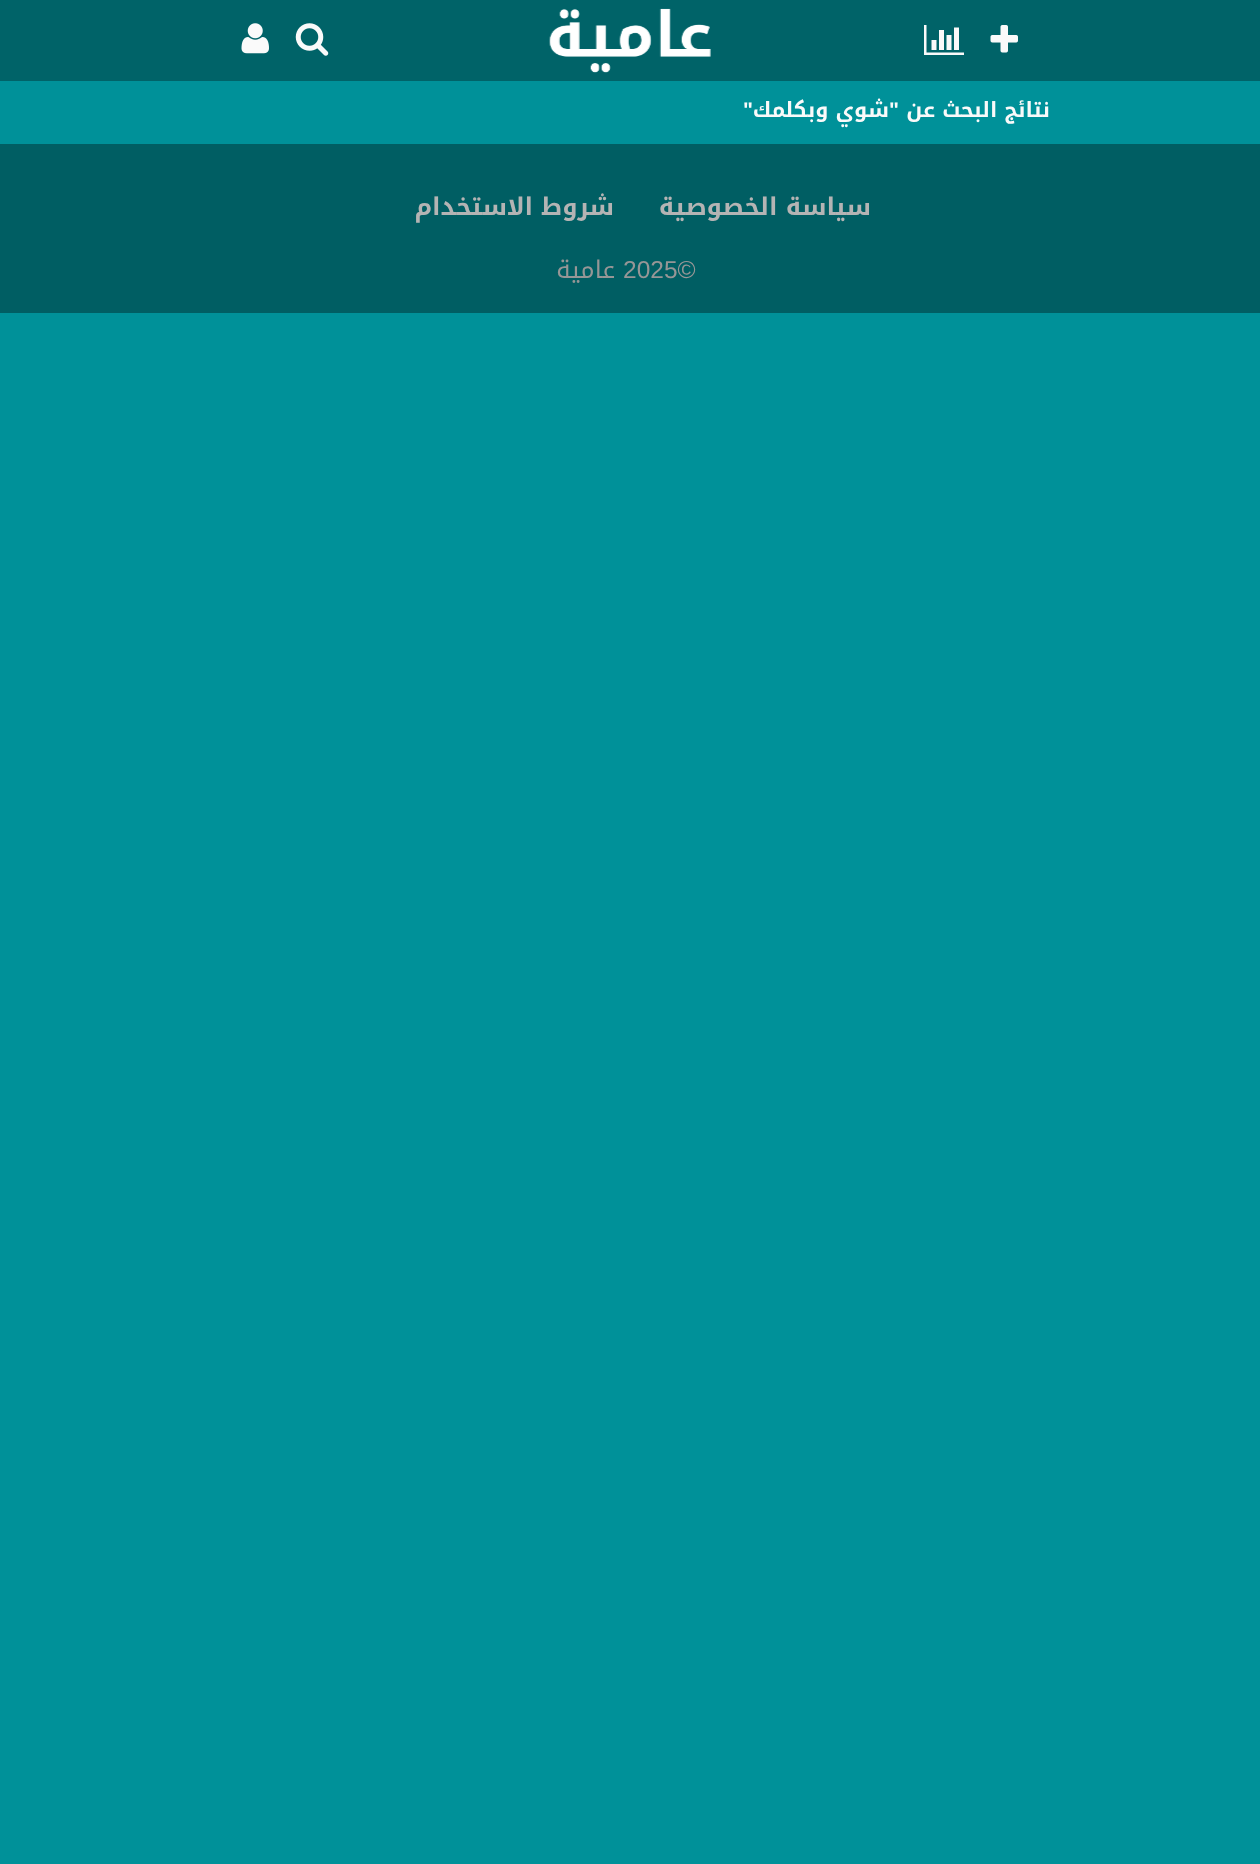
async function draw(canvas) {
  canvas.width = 1260;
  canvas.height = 1864;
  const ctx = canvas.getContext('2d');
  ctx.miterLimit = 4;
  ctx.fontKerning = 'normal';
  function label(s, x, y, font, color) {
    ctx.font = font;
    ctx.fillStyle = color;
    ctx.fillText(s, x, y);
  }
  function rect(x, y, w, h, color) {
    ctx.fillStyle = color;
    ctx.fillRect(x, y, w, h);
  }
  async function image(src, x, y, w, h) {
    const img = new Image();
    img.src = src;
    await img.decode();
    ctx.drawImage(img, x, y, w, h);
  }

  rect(0, 0, 1260, 1864, '#009199');
  rect(0, 0, 1260, 81, '#006368');
  await image('assets/img1.png', 990, 25, 28, 28);
  await image('assets/img2.png', 924, 25, 40, 30);
  await image('assets/img3.png', 549, 8, 162, 65);
  await image('assets/img4.png', 295, 23, 34, 33);
  await image('assets/img5.png', 241, 23, 28, 31);
  ctx.direction = 'rtl';
  label('نتائج البحث عن', 1050, 117, 'bold 21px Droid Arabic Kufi', '#fafafa');
  label('"', 899, 117, 'bold 21px Liberation Sans', '#fafafa');
  label('شوي وبكلمك', 889, 117, 'bold 21px Droid Arabic Kufi', '#fafafa');
  label('"', 753, 117, 'bold 21px Liberation Sans', '#fafafa');
  rect(0, 144, 1260, 169, '#005e63');
  label('سياسة الخصوصية', 871, 215, 'bold 24.5px Droid Arabic Kufi', '#b4b4b4');
  label('شروط الاستخدام', 614, 215, 'bold 24.5px Droid Arabic Kufi', '#b4b4b4');
  ctx.direction = 'ltr';
  label('2025©', 623, 278, '24.5px Liberation Sans', '#969696');
  ctx.direction = 'rtl';
  label('عامية', 615, 278, '24.5px Droid Arabic Kufi', '#969696');
}

draw(document.querySelector('canvas'));
